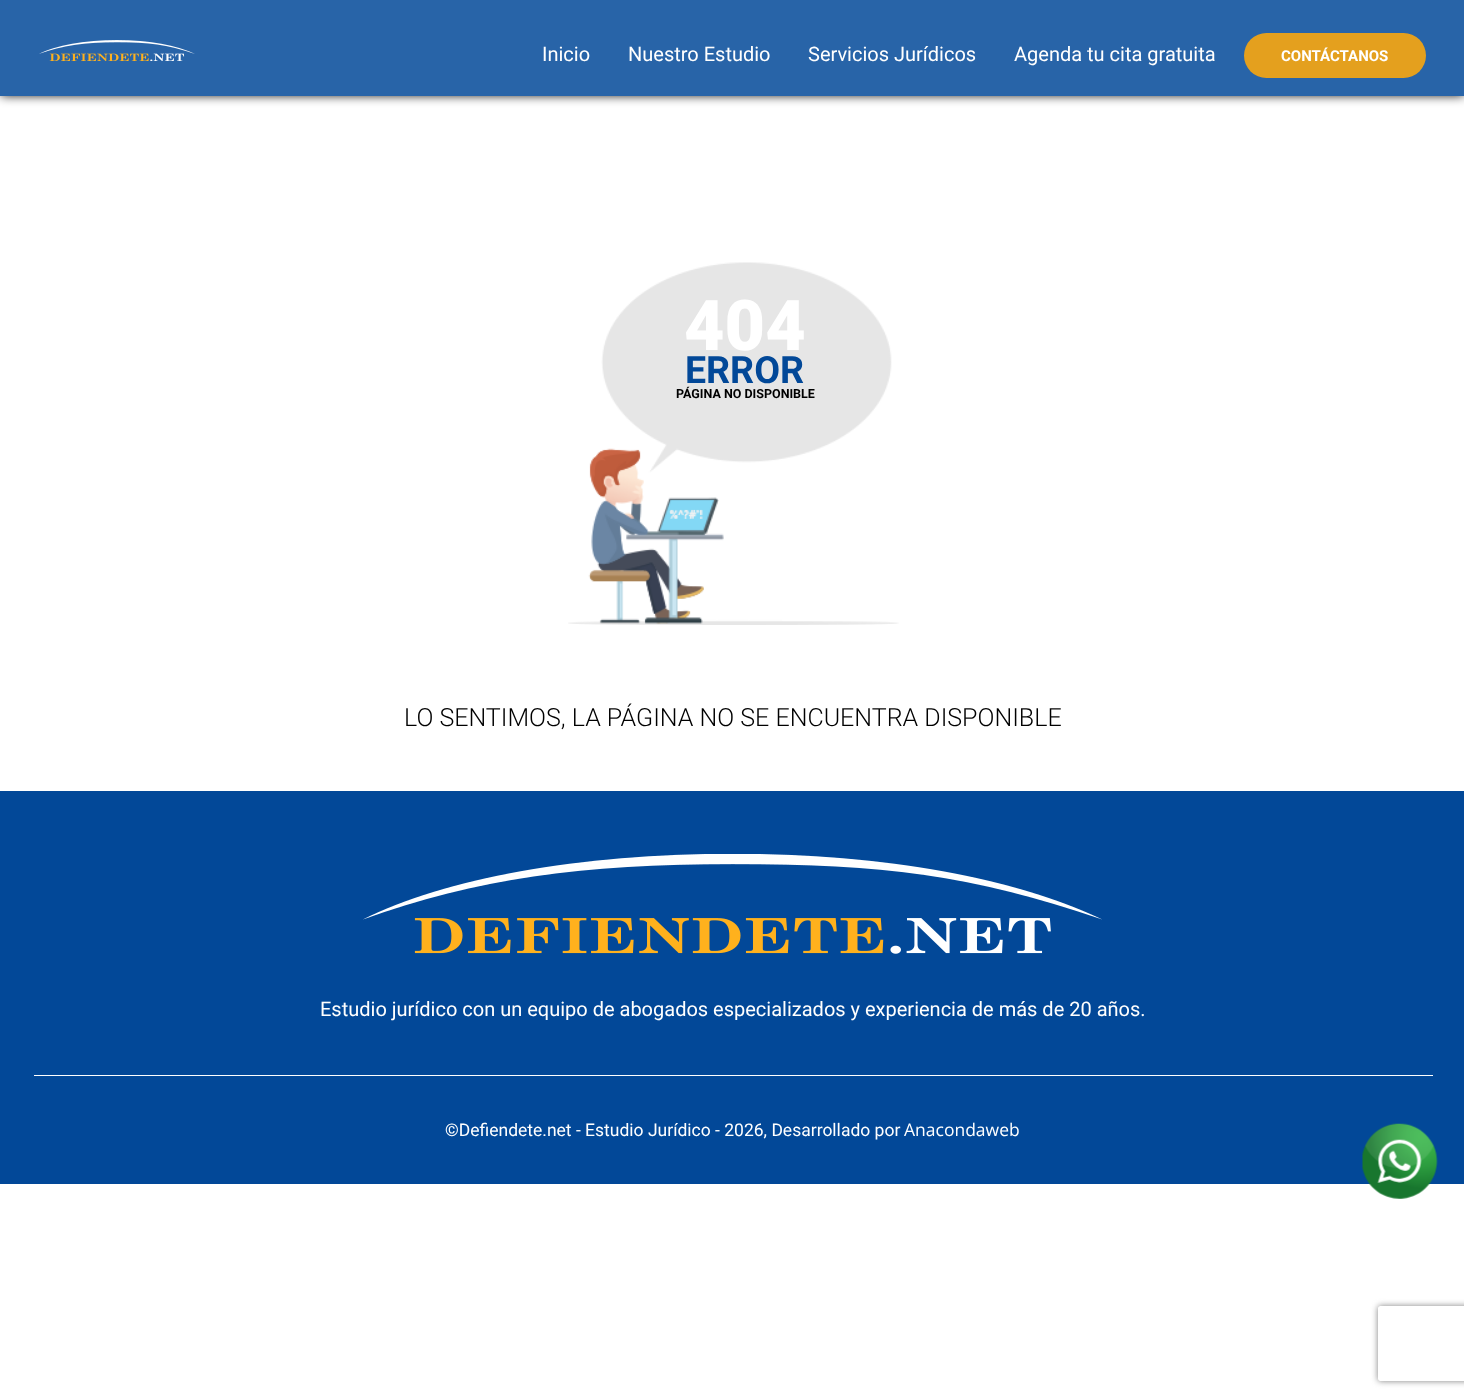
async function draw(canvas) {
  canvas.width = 1464;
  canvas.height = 1398;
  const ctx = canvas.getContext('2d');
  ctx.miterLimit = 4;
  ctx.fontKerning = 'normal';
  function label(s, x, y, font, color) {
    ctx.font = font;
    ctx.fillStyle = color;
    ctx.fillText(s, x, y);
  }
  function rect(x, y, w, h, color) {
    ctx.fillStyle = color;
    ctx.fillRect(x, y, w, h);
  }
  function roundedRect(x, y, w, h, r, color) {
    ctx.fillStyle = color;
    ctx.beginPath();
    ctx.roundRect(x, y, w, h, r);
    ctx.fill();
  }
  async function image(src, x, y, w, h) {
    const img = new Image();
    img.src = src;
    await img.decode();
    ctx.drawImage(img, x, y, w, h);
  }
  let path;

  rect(0, 0, 1464, 1398, '#fff');
  ctx.fillStyle = '#000';
  ctx.filter = 'blur(5.5px)';
  ctx.beginPath();
  ctx.rect(1, 1, 1463, 94);
  ctx.fill();
  ctx.filter = 'none';
  rect(0, 0, 1464, 96, '#2864a8');
  await image('assets/img1.png', 39, 40, 156, 21);
  label('Inicio', 542, 61, '20px Roboto', '#fff');
  label('Nuestro Estudio', 628, 61, '20px Roboto', '#fff');
  label('Servicios Jurídicos', 808, 61, '20px Roboto', '#fff');
  label('Agenda tu cita gratuita', 1014, 61, '20px Roboto', '#fff');
  roundedRect(1244, 33, 182, 45, 22.5, '#e4a01e');
  label('CONTÁCTANOS', 1281, 61, 'bold 15px Roboto', '#fff');
  rect(0, 791, 1464, 393, '#024898');
  await image('assets/img2.png', 1362, 1123, 76, 76);
  await image('assets/img3.png', 568, 262, 331, 363);
  label('404', 684, 350, '900 70px Roboto', '#fff');
  label('ERROR', 685, 383, 'bold 37.5px Roboto', '#024898');
  label('PÁGINA NO DISPONIBLE', 676, 398, 'bold 12.5px Roboto', '#000');
  label('LO SENTIMOS, LA PÁGINA NO SE ENCUENTRA DISPONIBLE', 404, 726, '300 25px Roboto', '#000');
  await image('assets/img4.png', 363, 854, 739, 100);
  label('Estudio jurídico con un equipo de abogados especializados y experiencia de más de 20 años.', 320, 1016, '20px Roboto', '#fff');
  rect(34, 1075, 1399, 1, '#fff');
  label('©Defiendete.net - Estudio Jurídico - 2026, Desarrollado por', 445, 1136, '17.5px Roboto', '#fff');
  label('Anacondaweb', 904, 1136, '17.5px Open Sans', '#fff');
  ctx.save();
  path = new Path2D('M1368 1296H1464V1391H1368ZM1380.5 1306H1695.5C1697 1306 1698 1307 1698 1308.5V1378.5C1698 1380 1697 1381 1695.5 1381H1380.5C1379 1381 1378 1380 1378 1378.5V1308.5C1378 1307 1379 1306 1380.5 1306Z');
  ctx.clip(path, 'evenodd');
  ctx.fillStyle = '#808080';
  ctx.filter = 'blur(3px)';
  ctx.beginPath();
  ctx.roundRect(1378, 1306, 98, 75, 2.5);
  ctx.fill();
  ctx.filter = 'none';
  ctx.restore();
}

draw(document.querySelector('canvas'));
